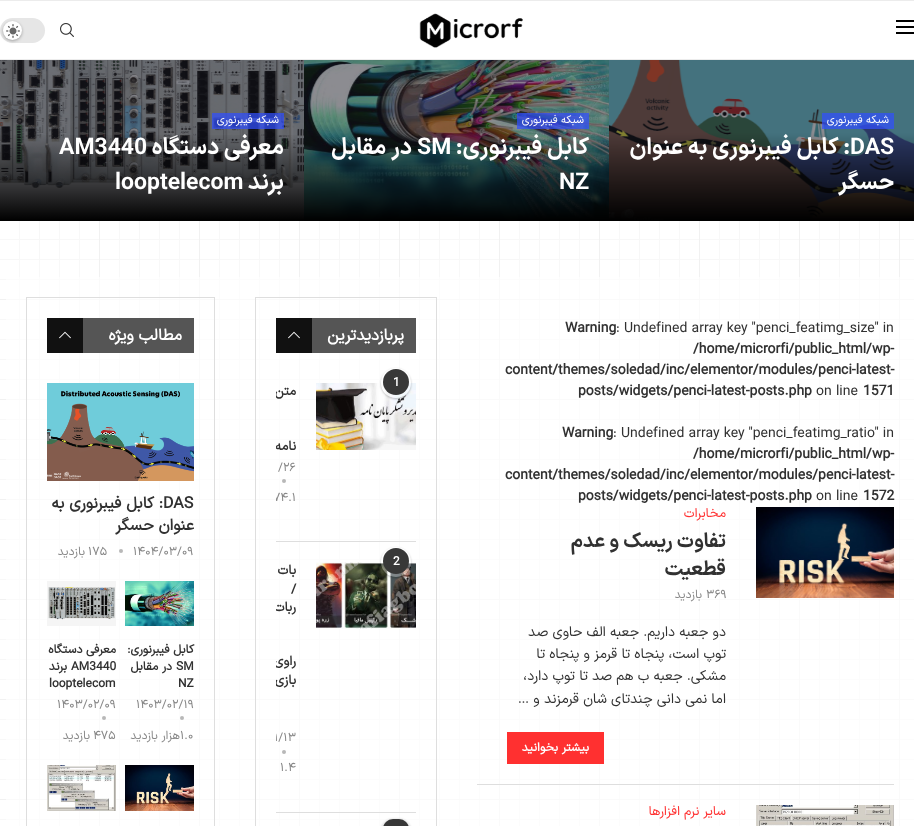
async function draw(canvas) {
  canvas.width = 914;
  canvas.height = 826;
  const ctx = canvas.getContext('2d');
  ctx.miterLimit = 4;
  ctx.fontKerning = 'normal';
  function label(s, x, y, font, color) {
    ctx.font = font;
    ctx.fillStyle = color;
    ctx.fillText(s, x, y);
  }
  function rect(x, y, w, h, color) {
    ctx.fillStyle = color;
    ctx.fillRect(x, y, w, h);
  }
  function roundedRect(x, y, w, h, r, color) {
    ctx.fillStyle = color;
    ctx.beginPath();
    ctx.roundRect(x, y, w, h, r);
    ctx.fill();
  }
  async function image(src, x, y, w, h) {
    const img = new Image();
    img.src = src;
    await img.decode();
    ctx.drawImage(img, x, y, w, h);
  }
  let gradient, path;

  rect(0, 0, 914, 826, '#fff');
  await image('assets/img1.png', 0, 221, 914, 605);
  rect(0, 0, 914, 1, '#ececec');
  rect(0, 59, 914, 1, '#ececec');
  roundedRect(0, 18, 45, 25, 12.5, '#e6e6e6');
  ctx.fillStyle = '#0000004d';
  ctx.filter = 'blur(1.5px)';
  ctx.beginPath();
  ctx.roundRect(3, 22, 19, 19, 9.5);
  ctx.fill();
  ctx.filter = 'none';
  ctx.fillStyle = '#fff';
  ctx.beginPath();
  ctx.arc(12.5, 30.5, 9.5, 0, 2 * Math.PI);
  ctx.fill();
  await image('assets/img2.png', 6, 24, 14, 14);
  await image('assets/img3.png', 60, 23, 14, 14);
  await image('assets/img4.png', 419, 13, 104, 35);
  rect(896, 20, 18, 2, '#000');
  rect(896, 26, 18, 2, '#000');
  rect(896, 32, 18, 2, '#000');
  rect(0, 181, 304, 39, '#f5f5f5');
  await image('assets/img5.png', 0, 60, 304, 129);
  rect(0, 60, 304, 160, '#19192380');
  gradient = ctx.createLinearGradient(152, 0, 152, 221);
  gradient.addColorStop(0.6, '#00000000');
  gradient.addColorStop(1, '#000');
  ctx.fillStyle = gradient;
  ctx.fillRect(0, 135, 304, 86);
  rect(212, 113, 72, 16, '#304ffeb8');
  ctx.direction = 'rtl';
  label('شبکه فیبرنوری', 279, 123, '11px "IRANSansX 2"', '#fff');
  ctx.direction = 'ltr';
  label('AM3440', 59, 154, 'bold 23px "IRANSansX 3"', '#fff');
  ctx.direction = 'rtl';
  label('معرفی دستگاه', 284, 154, 'bold 23px "IRANSansX 3"', '#fff');
  ctx.direction = 'ltr';
  label('looptelecom', 115, 189, 'bold 23px "IRANSansX 3"', '#fff');
  ctx.direction = 'rtl';
  label('برند', 284, 189, 'bold 23px "IRANSansX 3"', '#fff');
  await image('assets/img6.png', 304, 60, 305, 161);
  rect(517, 113, 72, 16, '#304ffeb8');
  label('شبکه فیبرنوری', 584, 123, '11px "IRANSansX 2"', '#fff');
  label('در مقابل', 412, 154, 'bold 23px "IRANSansX 3"', '#fff');
  ctx.direction = 'ltr';
  label('SM', 417, 154, 'bold 23px "IRANSansX 3"', '#fff');
  ctx.direction = 'rtl';
  label('کابل فیبرنوری:', 589, 154, 'bold 23px "IRANSansX 3"', '#fff');
  ctx.direction = 'ltr';
  label('NZ', 559, 189, 'bold 23px "IRANSansX 3"', '#fff');
  await image('assets/img7.png', 609, 60, 305, 161);
  rect(822, 113, 72, 16, '#304ffeb8');
  ctx.direction = 'rtl';
  label('شبکه فیبرنوری', 889, 123, '11px "IRANSansX 2"', '#fff');
  label(': کابل فیبرنوری به عنوان', 850, 154, 'bold 23px "IRANSansX 3"', '#fff');
  ctx.direction = 'ltr';
  label('DAS', 850, 154, 'bold 23px "IRANSansX 3"', '#fff');
  ctx.direction = 'rtl';
  label('حسگر', 894, 189, 'bold 23px "IRANSansX 3"', '#fff');
  rect(6, 277, 229, 549, '#ffffff9c');
  ctx.strokeStyle = '#dedede';
  ctx.strokeRect(26.5, 297.5, 188, 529);
  rect(47, 318, 36, 35, '#111');
  rect(83, 318, 111, 35, '#555');
  label('مطالب ویژه', 182, 340, 'bold 16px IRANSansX', '#fff');
  await image('assets/img8.png', 59, 331, 12, 8);
  await image('assets/img9.png', 47, 383, 147, 98);
  label(': کابل فیبرنوری به', 163, 508, 'bold 16px IRANSansX', '#313131');
  ctx.direction = 'ltr';
  label('DAS', 163, 508, 'bold 16px IRANSansX', '#313131');
  ctx.direction = 'rtl';
  label('عنوان حسگر', 194, 530, 'bold 16px IRANSansX', '#313131');
  label('بازدید', 85, 555, '12px IRANSansX', '#888');
  ctx.direction = 'ltr';
  label('۱۷۵', 88, 555, '12px IRANSansX', '#888');
  ctx.fillStyle = '#88888899';
  ctx.beginPath();
  ctx.arc(121, 551, 2, 0, 2 * Math.PI);
  ctx.fill();
  label('۱۴۰۴/۰۳/۰۹', 133, 555, '12px IRANSansX', '#888');
  rect(47, 581, 69, 45, '#f5f5f5');
  await image('assets/img10.png', 48, 587, 67, 33);
  ctx.direction = 'rtl';
  label('معرفی دستگاه', 116, 653, 'bold 12px IRANSansX', '#313131');
  label('برند', 67, 670, 'bold 12px IRANSansX', '#313131');
  ctx.direction = 'ltr';
  label('AM3440', 71, 670, 'bold 12px IRANSansX', '#313131');
  label('looptelecom', 49, 687, 'bold 12px IRANSansX', '#313131');
  label('۱۴۰۳/۰۲/۰۹', 57, 708, '12px IRANSansX', '#888');
  ctx.fillStyle = '#88888899';
  ctx.beginPath();
  ctx.arc(104, 718, 2, 0, 2 * Math.PI);
  ctx.fill();
  ctx.direction = 'rtl';
  label('بازدید', 90, 739, '12px IRANSansX', '#888');
  ctx.direction = 'ltr';
  label('۴۷۵', 93, 739, '12px IRANSansX', '#888');
  await image('assets/img11.png', 125, 581, 69, 45);
  ctx.direction = 'rtl';
  label('کابل فیبرنوری:', 194, 653, 'bold 12px IRANSansX', '#313131');
  label('در مقابل', 172, 670, 'bold 12px IRANSansX', '#313131');
  ctx.direction = 'ltr';
  label('SM', 176, 670, 'bold 12px IRANSansX', '#313131');
  label('NZ', 178, 687, 'bold 12px IRANSansX', '#313131');
  label('۱۴۰۳/۰۲/۱۹', 136, 708, '12px IRANSansX', '#888');
  ctx.fillStyle = '#88888899';
  ctx.beginPath();
  ctx.arc(182, 718, 2, 0, 2 * Math.PI);
  ctx.fill();
  ctx.direction = 'rtl';
  label('هزار بازدید', 180, 739, '12px IRANSansX', '#888');
  ctx.direction = 'ltr';
  label('۱.۰', 180, 739, '12px IRANSansX', '#888');
  await image('assets/img12.png', 47, 765, 69, 46);
  await image('assets/img13.png', 125, 765, 69, 46);
  rect(235, 277, 222, 549, '#ffffff9c');
  ctx.strokeRect(255.5, 297.5, 181, 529);
  rect(276, 318, 36, 35, '#111');
  rect(312, 318, 104, 35, '#555');
  ctx.direction = 'rtl';
  label('پربازدیدترین', 404, 340, 'bold 16px IRANSansX', '#fff');
  await image('assets/img8.png', 288, 331, 12, 8);
  rect(276, 541, 140, 1, '#dedede');
  await image('assets/img14.png', 316, 383, 100, 67);
  ctx.save();
  path = new Path2D('M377 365H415V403H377ZM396 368C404.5 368 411 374.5 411 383C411 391.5 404.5 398 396 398C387.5 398 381 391.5 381 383C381 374.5 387.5 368 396 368Z');
  ctx.clip(path, 'evenodd');
  ctx.fillStyle = '#00000040';
  ctx.filter = 'blur(1px)';
  ctx.beginPath();
  ctx.roundRect(381, 369, 30, 30, 15);
  ctx.fill();
  ctx.filter = 'none';
  ctx.restore();
  ctx.fillStyle = '#ffffff4d';
  ctx.beginPath();
  ctx.arc(396, 383, 15, 0, 2 * Math.PI);
  ctx.fill();
  ctx.fillStyle = '#383838';
  ctx.beginPath();
  ctx.arc(396, 382, 13, 0, 2 * Math.PI);
  ctx.fill();
  ctx.direction = 'ltr';
  label('1', 393, 386, 'bold 12px IRANSansX', '#fff');
  ctx.save();
  ctx.beginPath();
  ctx.rect(276, 383, 20, 138);
  ctx.clip();
  ctx.direction = 'rtl';
  label('متن', 296, 395, 'bold 13px IRANSansX', '#313131');
  label('نامه', 296, 450, 'bold 13px IRANSansX', '#313131');
  ctx.restore();
  label('/۲۶', 278, 471, '12px IRANSansX', '#888');
  ctx.fillStyle = '#88888899';
  ctx.beginPath();
  ctx.arc(284, 481, 2, 0, 2 * Math.PI);
  ctx.fill();
  ctx.save();
  ctx.beginPath();
  ctx.rect(276, 383, 20, 138);
  ctx.clip();
  label('۷۴.۱', 273, 501, '12px IRANSansX', '#888');
  ctx.restore();
  rect(276, 812, 140, 1, '#dedede');
  await image('assets/img15.png', 316, 562, 100, 67);
  ctx.save();
  path = new Path2D('M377 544H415V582H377ZM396 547C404.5 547 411 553.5 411 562C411 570.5 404.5 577 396 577C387.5 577 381 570.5 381 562C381 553.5 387.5 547 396 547Z');
  ctx.clip(path, 'evenodd');
  ctx.fillStyle = '#00000040';
  ctx.filter = 'blur(1px)';
  ctx.beginPath();
  ctx.roundRect(381, 548, 30, 30, 15);
  ctx.fill();
  ctx.filter = 'none';
  ctx.restore();
  ctx.fillStyle = '#ffffff4d';
  ctx.beginPath();
  ctx.arc(396, 562, 15, 0, 2 * Math.PI);
  ctx.fill();
  ctx.fillStyle = '#383838';
  ctx.beginPath();
  ctx.arc(396, 561, 13, 0, 2 * Math.PI);
  ctx.fill();
  label('2', 393, 565, 'bold 12px IRANSansX', '#fff');
  ctx.direction = 'rtl';
  label('بات', 296, 574, 'bold 13px IRANSansX', '#313131');
  ctx.direction = 'ltr';
  label('/', 291, 593, 'bold 13px IRANSansX', '#313131');
  ctx.save();
  ctx.beginPath();
  ctx.rect(276, 562, 20, 230);
  ctx.clip();
  ctx.direction = 'rtl';
  label('ربات', 296, 611, 'bold 13px IRANSansX', '#313131');
  label('راوی', 296, 665, 'bold 13px IRANSansX', '#313131');
  label('بازی', 296, 684, 'bold 13px IRANSansX', '#313131');
  ctx.direction = 'ltr';
  label('۱/۱۳', 274, 741, '12px IRANSansX', '#888');
  ctx.restore();
  ctx.fillStyle = '#b8b8b8';
  ctx.beginPath();
  ctx.arc(284, 752, 2, 0, 2 * Math.PI);
  ctx.fill();
  label('۱.۴', 280, 771, '12px IRANSansX', '#888');
  ctx.fillStyle = '#00000040';
  ctx.filter = 'blur(1px)';
  ctx.beginPath();
  ctx.roundRect(381, 819, 30, 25, 15);
  ctx.fill();
  ctx.filter = 'none';
  roundedRect(381, 818, 30, 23, 15, '#ffffff4d');
  roundedRect(383, 819, 26, 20, 13, '#383838');
  rect(457, 277, 457, 549, '#ffffff9c');
  label('Warning', 565, 332, 'bold 14px IRANSansX', '#313131');
  label(': Undefined array key "penci_featimg_size" in', 616, 332, '14px IRANSansX', '#313131');
  label('/home/microrfi/public_html/wp-', 693, 353, 'bold 14px IRANSansX', '#313131');
  label('content/themes/soledad/inc/elementor/modules/penci-latest-', 505, 374, 'bold 14px IRANSansX', '#313131');
  label('posts/widgets/penci-latest-posts.php', 578, 395, 'bold 14px IRANSansX', '#313131');
  label('on line', 816, 395, '14px IRANSansX', '#313131');
  label('1571', 863, 395, 'bold 14px IRANSansX', '#313131');
  label('Warning', 562, 437, 'bold 14px IRANSansX', '#313131');
  label(': Undefined array key "penci_featimg_ratio" in', 613, 437, '14px IRANSansX', '#313131');
  label('/home/microrfi/public_html/wp-', 693, 458, 'bold 14px IRANSansX', '#313131');
  label('content/themes/soledad/inc/elementor/modules/penci-latest-', 505, 479, 'bold 14px IRANSansX', '#313131');
  label('posts/widgets/penci-latest-posts.php', 578, 500, 'bold 14px IRANSansX', '#313131');
  label('on line', 816, 500, '14px IRANSansX', '#313131');
  label('1572', 863, 500, 'bold 14px IRANSansX', '#313131');
  rect(477, 784, 417, 1, '#dedede');
  ctx.direction = 'rtl';
  label('مخابرات', 726, 517, '13px IRANSansX', '#ff3030');
  label('تفاوت ریسک و عدم', 726, 547, 'bold 20px "IRANSansX 3"', '#313131');
  label('قطعیت', 726, 575, 'bold 20px "IRANSansX 3"', '#313131');
  label('بازدید', 702, 598, '12px "IRANSansX 2"', '#888');
  ctx.direction = 'ltr';
  label('۳۶۹', 706, 598, '12px "IRANSansX 2"', '#888');
  ctx.direction = 'rtl';
  label('دو جعبه داریم. جعبه الف حاوی صد', 726, 636, '14px "IRANSansX 2"', '#313131');
  label('توپ است، پنجاه تا قرمز و پنجاه تا', 726, 658, '14px "IRANSansX 2"', '#313131');
  label('مشکی. جعبه ب هم صد تا توپ دارد،‌', 726, 680, '14px "IRANSansX 2"', '#313131');
  label('اما نمی دانی چندتای شان قرمزند و …', 726, 703, '14px "IRANSansX 2"', '#313131');
  rect(507, 732, 97, 32, '#ff3030');
  label('بیشتر بخوانید', 589, 751, 'bold 12px "IRANSansX 2"', '#fff');
  await image('assets/img16.png', 756, 507, 138, 91);
  label('سایر نرم افزارها', 726, 815, '13px IRANSansX', '#ff3030');
  await image('assets/img17.png', 756, 805, 138, 21);
}

draw(document.querySelector('canvas'));
